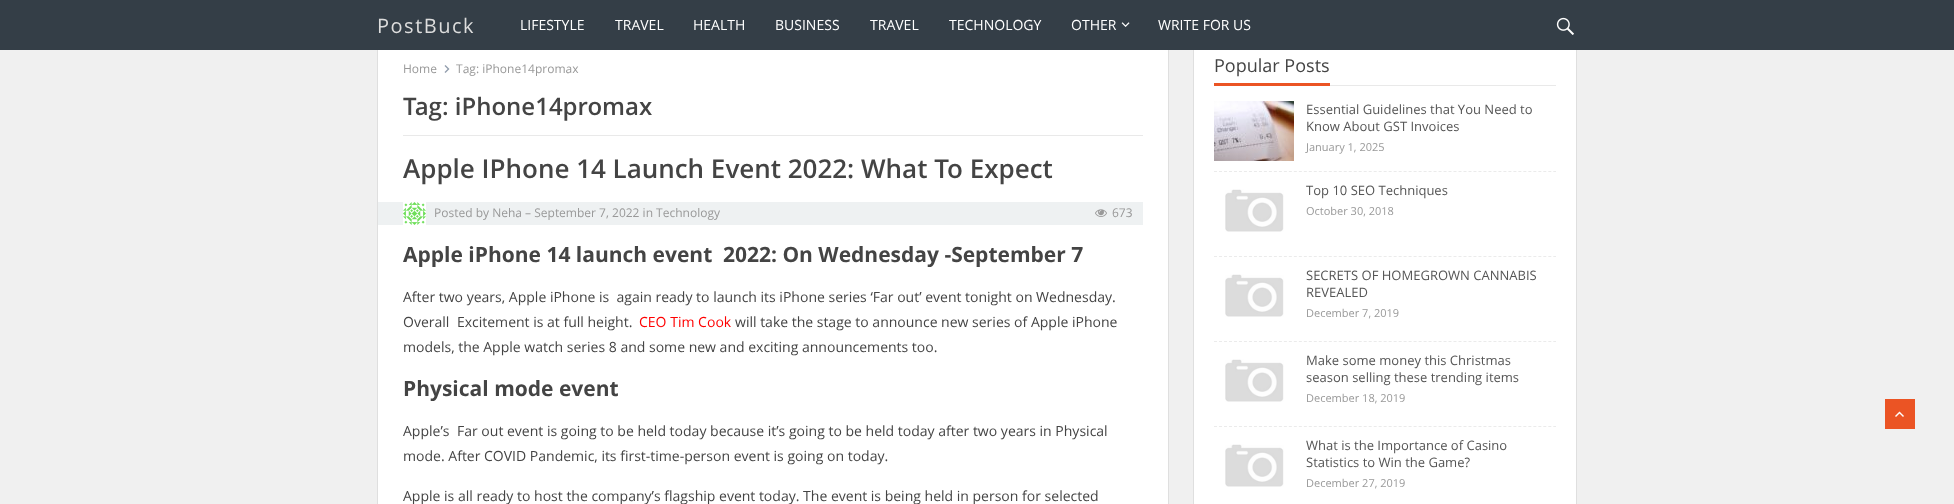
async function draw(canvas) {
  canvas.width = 1954;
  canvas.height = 504;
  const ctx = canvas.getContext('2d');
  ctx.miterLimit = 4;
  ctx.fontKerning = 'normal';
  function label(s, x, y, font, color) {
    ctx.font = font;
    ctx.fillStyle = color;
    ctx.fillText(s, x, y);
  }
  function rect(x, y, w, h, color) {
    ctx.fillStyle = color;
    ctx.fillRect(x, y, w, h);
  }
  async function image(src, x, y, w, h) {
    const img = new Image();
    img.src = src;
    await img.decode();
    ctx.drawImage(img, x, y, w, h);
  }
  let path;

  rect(0, 0, 1954, 504, '#f0f0f0');
  rect(378, 50, 790, 454, '#fff');
  ctx.strokeStyle = '#dfdfdf';
  ctx.strokeRect(377.5, 27.5, 791, 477);
  rect(1194, 50, 382, 454, '#fff');
  ctx.strokeRect(1193.5, 27.5, 383, 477);
  rect(0, 0, 1954, 50, '#343e47');
  ctx.letterSpacing = '1.5px';
  label('PostBuck', 377, 33, '20px Open Sans', '#ddd');
  ctx.letterSpacing = '0px';
  label('LIFESTYLE', 520, 30, '14px Open Sans', '#fff');
  label('TRAVEL', 615, 30, '14px Open Sans', '#fff');
  label('HEALTH', 693, 30, '14px Open Sans', '#fff');
  label('BUSINESS', 775, 30, '14px Open Sans', '#fff');
  label('TRAVEL', 870, 30, '14px Open Sans', '#fff');
  label('TECHNOLOGY', 949, 30, '14px Open Sans', '#fff');
  label('OTHER', 1071, 30, '14px Open Sans', '#fff');
  await image('assets/img1.png', 1121, 22, 9, 5);
  label('WRITE FOR US', 1158, 30, '14px Open Sans', '#fff');
  await image('assets/img2.png', 1556, 17, 18, 18);
  rect(403, 135, 740, 1, '#e9e9e9');
  label('Home', 403, 73, '12px Open Sans', '#999');
  await image('assets/img3.png', 444, 65, 6, 8);
  label('Tag: iPhone14promax', 456, 73, '12px Open Sans', '#999');
  label('Tag: iPhone14promax', 403, 115, '600 24px Open Sans', '#444');
  label('Apple IPhone 14 Launch Event 2022: What To Expect', 403, 178, '600 26px Open Sans', '#444');
  rect(378, 202, 765, 23, '#eef1f2');
  await image('assets/img4.png', 403, 202, 23, 23);
  label('Posted by Neha – September 7, 2022 in Technology', 434, 217, '12px Open Sans', '#999');
  await image('assets/img5.png', 1095, 209, 12, 8);
  label('673', 1112, 217, '12px Open Sans', '#999');
  label('Apple iPhone 14 launch event', 403, 262, 'bold 21px Open Sans', '#444');
  label('2022: On Wednesday -September 7', 723, 262, 'bold 21px Open Sans', '#444');
  label('After two years, Apple iPhone is  again ready to launch its iPhone series ‘Far out’ event tonight on Wednesday.', 403, 302, '14px Open Sans', '#444');
  label('Overall', 403, 327, '14px Open Sans', '#444');
  label('Excitement is at full height.', 457, 327, '14px Open Sans', '#444');
  label('CEO Tim Cook', 639, 327, '14px Open Sans', '#f00');
  label('will take the stage to announce new series of Apple iPhone', 735, 327, '14px Open Sans', '#444');
  label('models, the Apple watch series 8 and some new and exciting announcements too.', 403, 352, '14px Open Sans', '#444');
  label('Physical mode event', 403, 396, 'bold 21px Open Sans', '#444');
  label('Apple’s', 403, 436, '14px Open Sans', '#444');
  label('Far out event is going to be held today because it’s going to be held today after two years in Physical', 457, 436, '14px Open Sans', '#444');
  label('mode. After COVID Pandemic, its first-time-person event is going on today.', 403, 461, '14px Open Sans', '#444');
  label('Apple is all ready to host the company’s flagship event today. The event is being held in person for selected', 403, 501, '14px Open Sans', '#444');
  rect(1330, 85, 226, 1, '#e9e9e9');
  rect(1214, 83, 116, 3, '#eb5424');
  label('Popular Posts', 1214, 72, '18px Open Sans', '#444');
  path = new Path2D('M1214 171.5H1556');
  ctx.strokeStyle = '#ebebeb';
  ctx.setLineDash([3, 1.99]);
  ctx.stroke(path);
  await image('assets/img6.png', 1214, 101, 80, 60);
  label('Essential Guidelines that You Need to', 1306, 114, '13px Open Sans', '#555');
  label('Know About GST Invoices', 1306, 131, '13px Open Sans', '#555');
  label('January 1, 2025', 1306, 151, '11px Open Sans', '#999');
  path = new Path2D('M1214 256.5H1556');
  ctx.stroke(path);
  await image('assets/img7.png', 1225, 189, 59, 43);
  label('Top 10 SEO Techniques', 1306, 195, '13px Open Sans', '#555');
  label('October 30, 2018', 1306, 215, '11px Open Sans', '#999');
  path = new Path2D('M1214 341.5H1556');
  ctx.stroke(path);
  await image('assets/img7.png', 1225, 274, 59, 43);
  label('SECRETS OF HOMEGROWN CANNABIS', 1306, 280, '13px Open Sans', '#555');
  label('REVEALED', 1306, 297, '13px Open Sans', '#555');
  label('December 7, 2019', 1306, 317, '11px Open Sans', '#999');
  path = new Path2D('M1214 426.5H1556');
  ctx.stroke(path);
  await image('assets/img7.png', 1225, 359, 59, 43);
  label('Make some money this Christmas', 1306, 365, '13px Open Sans', '#555');
  label('season selling these trending items', 1306, 382, '13px Open Sans', '#555');
  label('December 18, 2019', 1306, 402, '11px Open Sans', '#999');
  await image('assets/img7.png', 1225, 444, 59, 43);
  label('What is the Importance of Casino', 1306, 450, '13px Open Sans', '#555');
  label('Statistics to Win the Game?', 1306, 467, '13px Open Sans', '#555');
  label('December 27, 2019', 1306, 487, '11px Open Sans', '#999');
  rect(1885, 399, 30, 30, '#eb5424');
  await image('assets/img8.png', 1895, 411, 9, 6);
}

draw(document.querySelector('canvas'));
